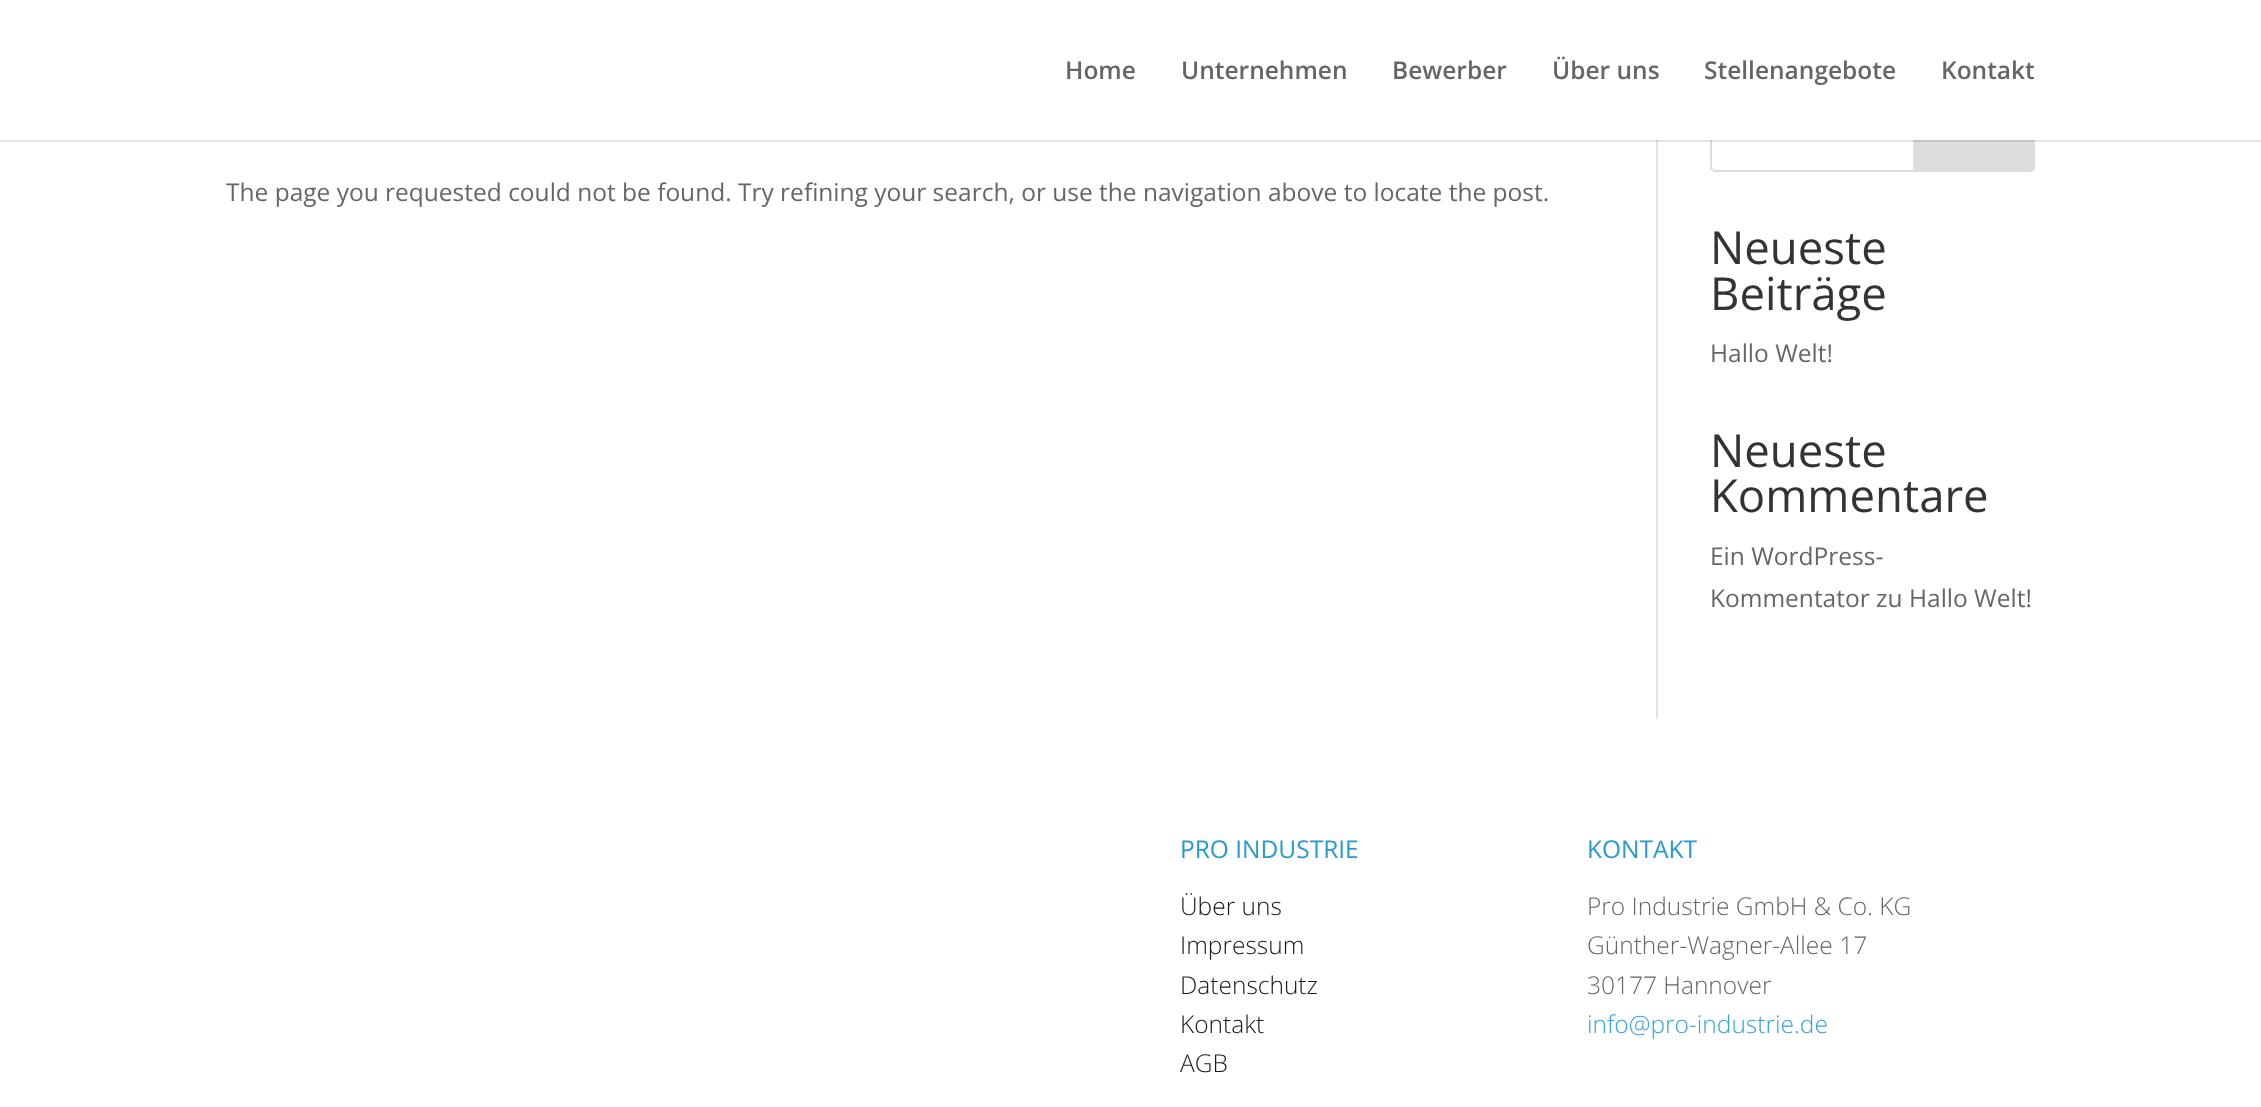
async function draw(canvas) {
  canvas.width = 2261;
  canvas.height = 1107;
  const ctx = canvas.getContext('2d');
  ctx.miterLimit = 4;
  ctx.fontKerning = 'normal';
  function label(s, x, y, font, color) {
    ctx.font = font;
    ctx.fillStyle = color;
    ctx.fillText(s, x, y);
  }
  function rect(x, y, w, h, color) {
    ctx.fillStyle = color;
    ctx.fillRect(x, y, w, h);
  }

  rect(0, 0, 2261, 1107, '#fff');
  rect(1656, 140, 2, 579, '#e2e2e2');
  ctx.beginPath();
  ctx.roundRect(1711, 103, 323, 68, 4);
  ctx.strokeStyle = '#ddd';
  ctx.lineWidth = 2;
  ctx.stroke();
  ctx.fillStyle = '#ddd';
  ctx.beginPath();
  ctx.roundRect(1914, 103, 120, 68, [0, 4, 4, 0]);
  ctx.fill();
  ctx.stroke();
  rect(0, 140, 2261, 2, '#0000001a');
  rect(1710, 102, 325, 38, '#fff');
  label('Home', 1065, 79, '600 24.5px Open Sans', '#666');
  label('Unternehmen', 1181, 79, '600 24.5px Open Sans', '#666');
  label('Bewerber', 1392, 79, '600 24.5px Open Sans', '#666');
  label('Über uns', 1552, 79, '600 24.5px Open Sans', '#666');
  label('Stellenangebote', 1704, 79, '600 24.5px Open Sans', '#666');
  label('Kontakt', 1941, 79, '600 24.5px Open Sans', '#666');
  label('The page you requested could not be found. Try refining your search, or use the navigation above to locate the post.', 226, 201, '24.5px Open Sans', '#666');
  label('Neueste', 1710, 264, '45.5px Open Sans', '#333');
  label('Beiträge', 1710, 310, '45.5px Open Sans', '#333');
  label('Hallo Welt!', 1710, 362, '24.5px Open Sans', '#666');
  label('Neueste', 1710, 467, '45.5px Open Sans', '#333');
  label('Kommentare', 1710, 512, '45.5px Open Sans', '#333');
  label('Ein WordPress-', 1710, 565, '24.5px Open Sans', '#666');
  label('Kommentator zu Hallo Welt!', 1710, 607, '24.5px Open Sans', '#666');
  label('PRO INDUSTRIE', 1180, 858, '24.5px Open Sans', '#249bd3');
  label('Über uns', 1180, 915, '300 24.5px Open Sans', '#1a181c');
  label('Impressum', 1180, 954, '300 24.5px Open Sans', '#1a181c');
  label('Datenschutz', 1180, 994, '300 24.5px Open Sans', '#1a181c');
  label('Kontakt', 1180, 1033, '300 24.5px Open Sans', '#1a181c');
  label('AGB', 1180, 1072, '300 24.5px Open Sans', '#1a181c');
  label('KONTAKT', 1587, 858, '24.5px Open Sans', '#249bd3');
  label('Pro Industrie GmbH & Co. KG', 1587, 915, '300 24.5px Open Sans', '#666');
  label('Günther-Wagner-Allee 17', 1587, 954, '300 24.5px Open Sans', '#666');
  label('30177 Hannover', 1587, 994, '300 24.5px Open Sans', '#666');
  label('info@pro-industrie.de', 1587, 1033, '300 24.5px Open Sans', '#2ea3f2');
}

draw(document.querySelector('canvas'));
